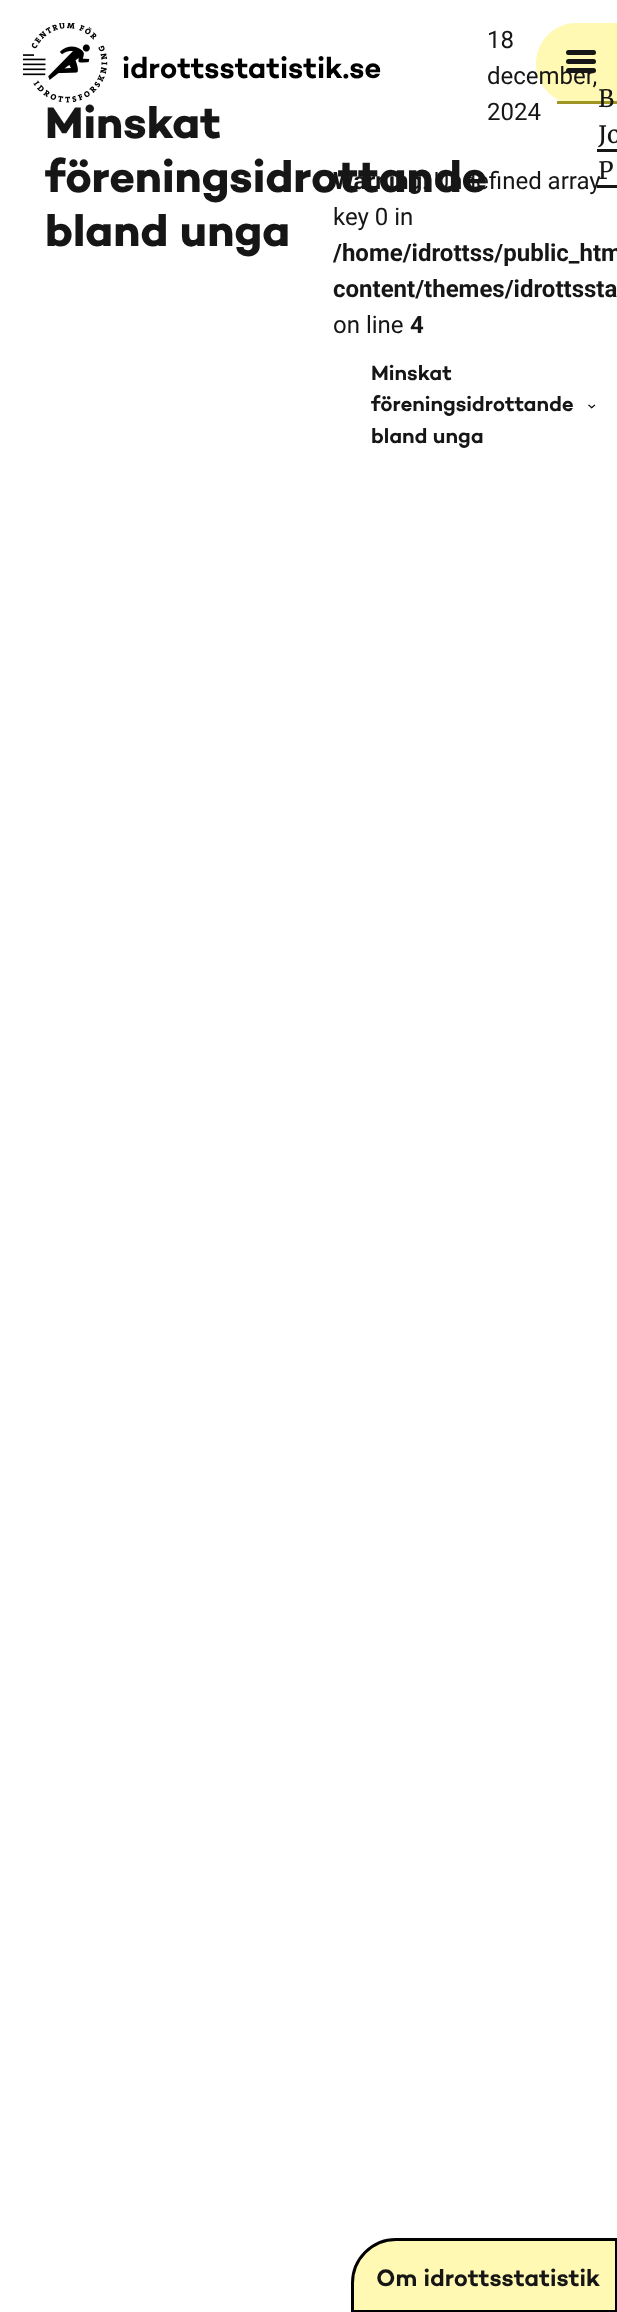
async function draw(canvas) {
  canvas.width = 617;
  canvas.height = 2312;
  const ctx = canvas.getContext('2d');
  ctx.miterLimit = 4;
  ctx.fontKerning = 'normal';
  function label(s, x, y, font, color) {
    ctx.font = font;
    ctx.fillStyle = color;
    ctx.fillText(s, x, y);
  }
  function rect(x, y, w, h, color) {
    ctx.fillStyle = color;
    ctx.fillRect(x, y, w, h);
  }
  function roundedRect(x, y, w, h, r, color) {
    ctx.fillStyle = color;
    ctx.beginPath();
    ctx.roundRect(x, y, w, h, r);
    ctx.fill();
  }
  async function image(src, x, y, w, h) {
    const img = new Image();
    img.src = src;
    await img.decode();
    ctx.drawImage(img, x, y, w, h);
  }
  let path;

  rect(0, 0, 617, 2312, '#fff');
  label('18', 487, 48, '24px Roboto', '#161616');
  ctx.fillStyle = '#fff9b3';
  path = new Path2D('M576.5 23H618V104H576.5C554 104 536 86 536 63.5C536 41 554 23 576.5 23Z');
  ctx.fill(path);
  roundedRect(566, 68, 30, 5, 2.5, '#161616');
  label('december,', 487, 84, '24px Roboto', '#161616');
  label('2024', 487, 120, '24px Roboto', '#161616');
  label('Minskat', 45, 138, 'bold 45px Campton', '#161616');
  label('Warning', 333, 189, 'bold 24px Roboto', '#161616');
  label(': Undefined array', 422, 189, '24px Roboto', '#161616');
  label('föreningsidrottande', 45, 192, 'bold 45px Campton', '#161616');
  label('bland unga', 45, 246, 'bold 45px Campton', '#161616');
  rect(557, 101, 60, 3, '#9f9524');
  label('B', 598, 107, '24px Merriweather', '#161616');
  label('Jo', 598, 143, '24px Merriweather', '#161616');
  rect(597, 149, 20, 3, '#161616');
  label('P', 598, 179, '24px Merriweather', '#161616');
  rect(597, 185, 20, 3, '#161616');
  label('key 0 in', 333, 225, '24px Roboto', '#161616');
  label('/home/idrottss/public_htm', 333, 261, 'bold 24px Roboto', '#161616');
  label('content/themes/idrottssta', 333, 297, 'bold 24px Roboto', '#161616');
  label('on line', 333, 333, '24px Roboto', '#161616');
  label('4', 410, 333, 'bold 24px Roboto', '#161616');
  label('Minskat', 371, 380, '600 21px Campton', '#161616');
  label('föreningsidrottande', 371, 411, '600 21px Campton', '#161616');
  await image('assets/img1.png', 588, 404, 8, 5);
  label('bland unga', 371, 443, '600 21px Campton', '#161616');
  await image('assets/img2.png', 23, 23, 85, 80);
  label('idrottsstatistik.se', 122, 78, '600 30px Campton', '#000');
  roundedRect(566, 50, 30, 5, 2.5, '#161616');
  roundedRect(566, 59, 30, 5, 2.5, '#161616');
  ctx.fillStyle = '#fff9b3';
  path = new Path2D('M396 2239.5H616.5V2311.5H352.5V2283C352.5 2259 372 2239.5 396 2239.5Z');
  ctx.fill(path);
  ctx.strokeStyle = '#000';
  ctx.lineWidth = 3;
  ctx.stroke(path);
  label('Om idrottsstatistik', 376, 2286, '600 24px Campton', '#161616');
}

draw(document.querySelector('canvas'));
